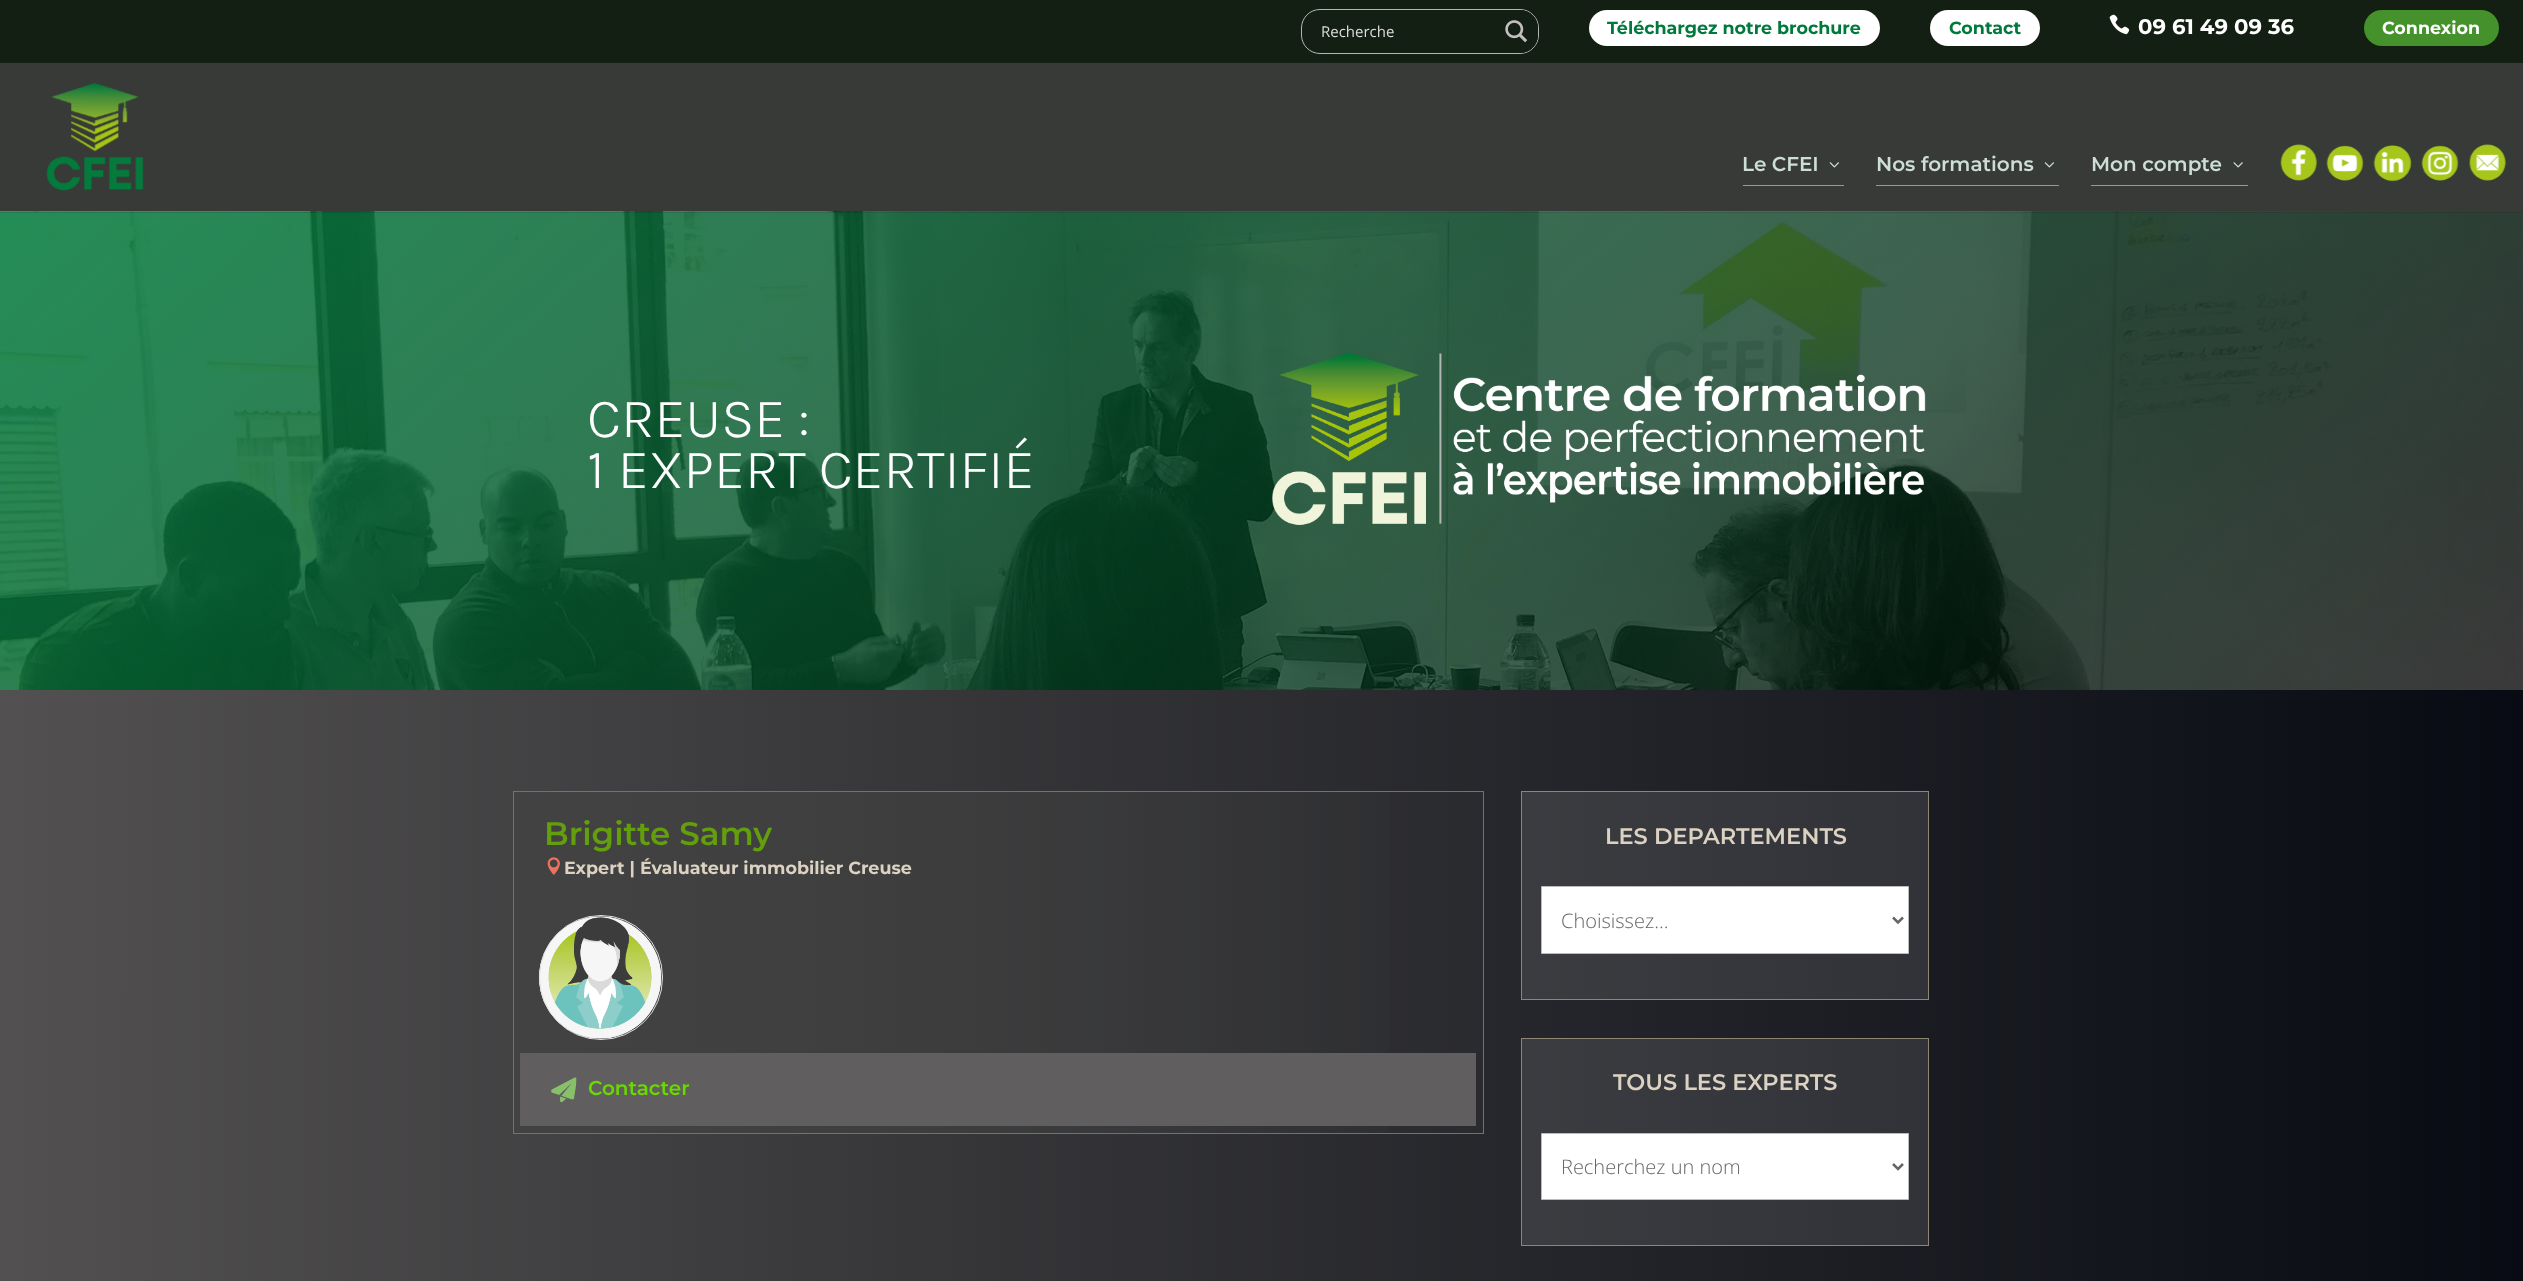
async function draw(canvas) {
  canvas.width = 2523;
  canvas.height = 1281;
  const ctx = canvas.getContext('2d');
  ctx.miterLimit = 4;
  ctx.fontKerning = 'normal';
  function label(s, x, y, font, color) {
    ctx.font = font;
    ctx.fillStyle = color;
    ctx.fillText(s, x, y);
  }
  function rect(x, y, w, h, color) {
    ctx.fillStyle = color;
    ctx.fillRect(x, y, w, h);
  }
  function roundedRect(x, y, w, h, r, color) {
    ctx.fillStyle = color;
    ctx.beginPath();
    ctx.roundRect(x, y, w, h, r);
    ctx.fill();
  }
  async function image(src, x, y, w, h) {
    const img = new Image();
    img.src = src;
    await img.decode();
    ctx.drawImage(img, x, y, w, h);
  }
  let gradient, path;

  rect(0, 0, 2523, 1281, '#fff');
  rect(0, 0, 2523, 63, '#131f13');
  ctx.beginPath();
  ctx.roundRect(1301.5, 9.5, 237, 44, 18.5);
  ctx.strokeStyle = '#b6b6b6';
  ctx.stroke();
  label('Recherche', 1321, 37, '15px Open Sans', '#dcdddc');
  ctx.fillStyle = '#131f13';
  ctx.beginPath();
  ctx.roundRect(1495, 10, 43, 43, [0, 18, 18, 0]);
  ctx.fill();
  await image('assets/img1.png', 1505, 20, 23, 23);
  roundedRect(1589, 10, 291, 36, 18, '#fff');
  label('Téléchargez notre brochure', 1607, 34, 'bold 17.5px Montserrat', '#007a3c');
  roundedRect(1930, 10, 110, 36, 18, '#fff');
  label('Contact', 1949, 34, 'bold 17.5px Montserrat', '#007a3c');
  await image('assets/img2.png', 2109, 14, 21, 21);
  label('09 61 49 09 36', 2138, 34, 'bold 21.25px Montserrat', '#fff');
  roundedRect(2364, 10, 135, 36, 18, '#45922c');
  label('Connexion', 2382, 34, 'bold 17.5px Montserrat', '#fff');
  gradient = ctx.createLinearGradient(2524, 1143, 0, 1142);
  gradient.addColorStop(0, '#080b13');
  gradient.addColorStop(1, '#525050');
  ctx.fillStyle = gradient;
  ctx.fillRect(0, 211, 2523, 1070);
  await image('assets/img11.png', 0, 211, 2523, 479);
  ctx.fillStyle = '#0000001a';
  path = new Path2D('M0 211V213H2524V64V211Z');
  ctx.fill(path);
  rect(0, 63, 2523, 148, '#373a37');
  await image('assets/img3.png', 46, 83, 98, 108);
  rect(1743, 185, 101, 1, '#9a9999');
  label('Le CFEI', 1742, 171, '600 20px Montserrat', '#ccded5');
  await image('assets/img4.png', 1829, 162, 10, 6);
  rect(1876, 185, 183, 1, '#9a9999');
  label('Nos formations', 1876, 171, '600 20px Montserrat', '#ccded5');
  await image('assets/img4.png', 2044, 162, 10, 6);
  rect(2091, 185, 157, 1, '#9a9999');
  label('Mon compte', 2091, 171, '600 20px Montserrat', '#ccded5');
  await image('assets/img5.png', 2233, 162, 10, 6);
  await image('assets/img6.png', 2280, 144, 37, 37);
  await image('assets/img7.png', 2326, 145, 38, 36);
  await image('assets/img8.png', 2373, 145, 39, 37);
  await image('assets/img9.png', 2421, 145, 38, 36);
  await image('assets/img10.png', 2469, 144, 37, 37);
  gradient = ctx.createLinearGradient(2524, 1143, 0, 1142);
  gradient.addColorStop(0, '#21242b');
  gradient.addColorStop(1, '#636161');
  ctx.fillStyle = gradient;
  ctx.fillRect(1521, 1038, 408, 208);
  ctx.fillRect(1521, 791, 408, 209);
  gradient = ctx.createLinearGradient(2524, 1143, 0, 1142);
  gradient.addColorStop(0, '#13151b');
  gradient.addColorStop(1, '#4b4a4a');
  ctx.fillStyle = gradient;
  ctx.fillRect(520, 792, 963, 341);
  await image('assets/img12.png', 1272, 352, 654, 173);
  label('CREUSE :', 587, 437, '300 56.25px Karla', '#fff');
  label('1 EXPERT CERTIFIÉ', 587, 488, '300 56.25px Karla', '#fff');
  gradient = ctx.createLinearGradient(1483, 963, 514, 963);
  gradient.addColorStop(0, '#43424200');
  gradient.addColorStop(1, '#434242');
  ctx.fillStyle = gradient;
  ctx.fillRect(520, 792, 869, 341);
  ctx.strokeStyle = '#727272';
  ctx.strokeRect(513.5, 791.5, 970, 342);
  label('Brigitte Samy', 544, 845, '600 32.5px Montserrat', '#639e0d');
  await image('assets/img13.png', 547, 857, 13, 18);
  label('Expert | Évaluateur immobilier Creuse', 564, 874, 'bold 17.5px Montserrat', '#dcd2c2');
  await image('assets/img14.png', 538, 916, 124, 123);
  ctx.beginPath();
  ctx.roundRect(539.5, 915.5, 123, 124, 61.5);
  ctx.strokeStyle = '#ddd';
  ctx.stroke();
  rect(520, 1053, 956, 73, '#605e5e');
  await image('assets/img15.png', 551, 1077, 26, 26);
  label('Contacter', 588, 1095, '600 20px Montserrat', '#69d901');
  ctx.strokeStyle = '#968c79eb';
  ctx.strokeRect(1521.5, 791.5, 407, 208);
  label('LES DEPARTEMENTS', 1605, 844, '600 22.5px Montserrat', '#dcd2c2');
  ctx.fillStyle = '#fff';
  ctx.beginPath();
  ctx.rect(1541.5, 886.5, 367, 67);
  ctx.fill();
  ctx.strokeStyle = '#bbb';
  ctx.stroke();
  path = new Path2D('M1893 917.5L1898 922.5L1903 917.5');
  ctx.strokeStyle = '#666';
  ctx.lineWidth = 2.5;
  ctx.stroke(path);
  label('Choisissez...', 1561, 928, '300 20px Open Sans', '#666');
  ctx.strokeStyle = '#968c79eb';
  ctx.lineWidth = 1;
  ctx.strokeRect(1521.5, 1038.5, 407, 207);
  label('TOUS LES EXPERTS', 1613, 1090, '600 22.5px Montserrat', '#dcd2c2');
  ctx.fillStyle = '#fff';
  ctx.beginPath();
  ctx.rect(1541.5, 1133.5, 367, 66);
  ctx.fill();
  ctx.strokeStyle = '#bbb';
  ctx.stroke();
  path = new Path2D('M1893 1164L1898 1169L1903 1164');
  ctx.strokeStyle = '#666';
  ctx.lineWidth = 2.5;
  ctx.stroke(path);
  label('Recherchez un nom', 1561, 1174, '300 20px Open Sans', '#666');
}

draw(document.querySelector('canvas'));
